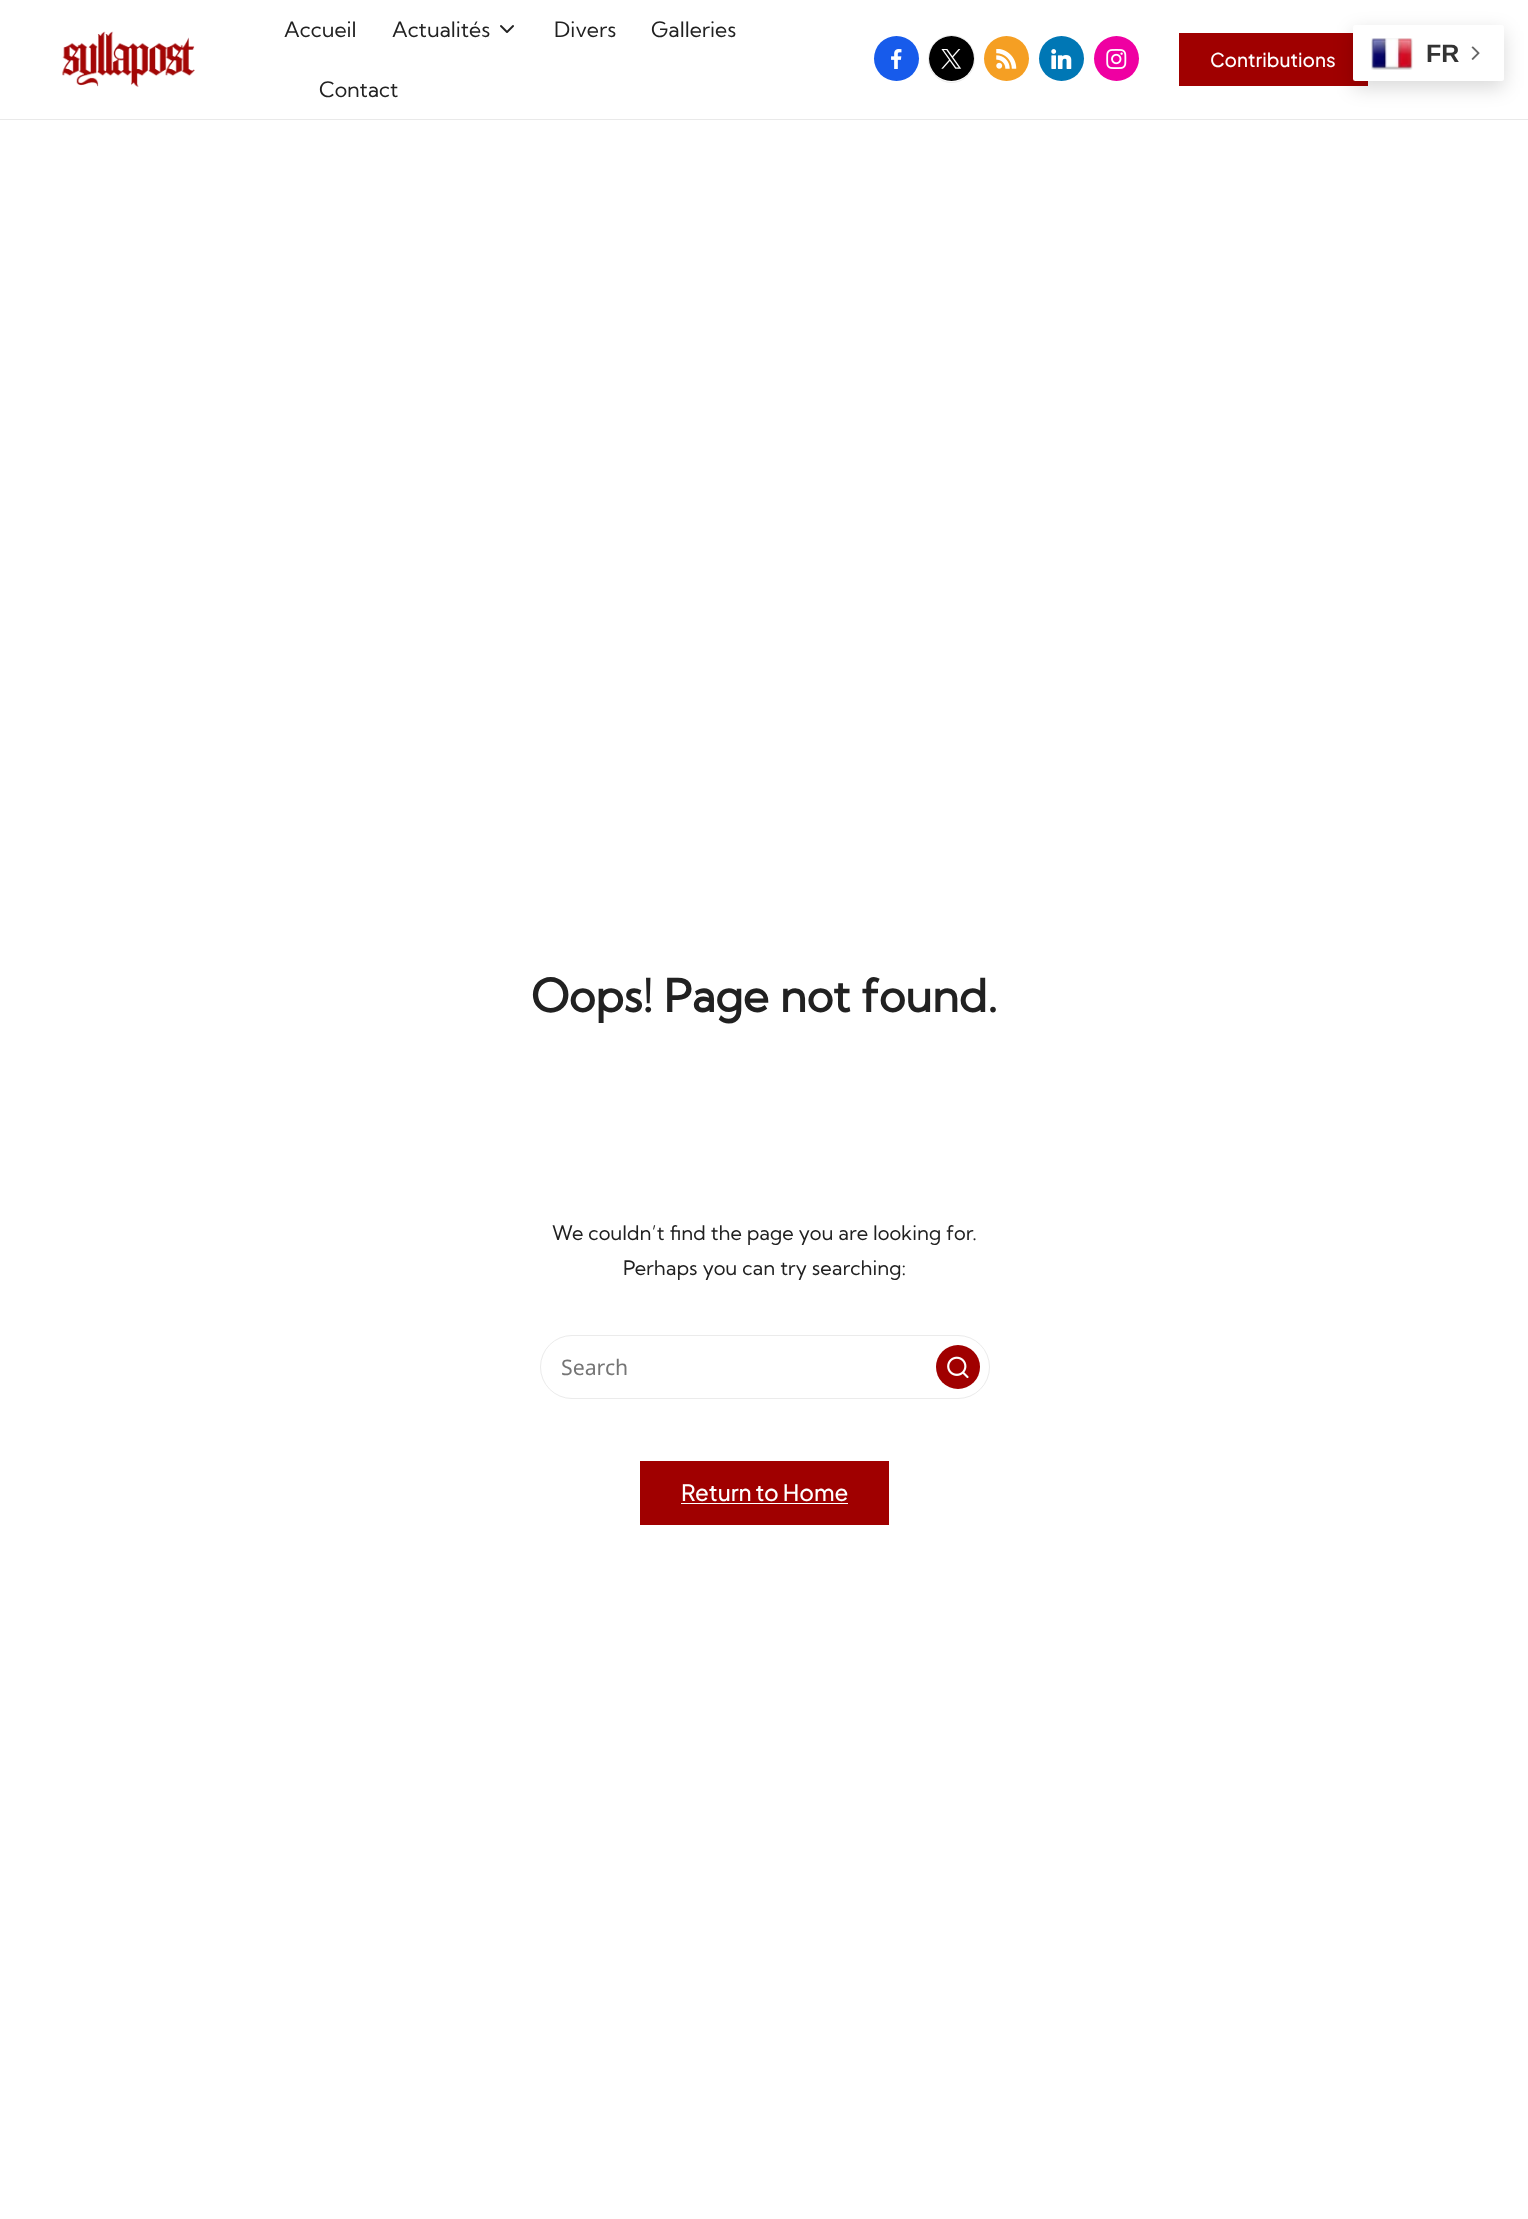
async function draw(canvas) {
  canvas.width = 1528;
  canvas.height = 2219;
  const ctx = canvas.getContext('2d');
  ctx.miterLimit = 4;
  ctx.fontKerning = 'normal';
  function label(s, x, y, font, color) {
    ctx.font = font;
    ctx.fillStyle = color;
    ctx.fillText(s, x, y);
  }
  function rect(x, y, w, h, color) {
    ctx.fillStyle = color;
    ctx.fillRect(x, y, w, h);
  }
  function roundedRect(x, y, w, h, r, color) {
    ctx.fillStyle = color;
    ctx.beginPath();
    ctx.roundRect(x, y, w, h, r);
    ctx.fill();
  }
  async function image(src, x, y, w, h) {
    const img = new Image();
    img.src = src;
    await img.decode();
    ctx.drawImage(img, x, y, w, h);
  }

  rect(0, 0, 1528, 2219, '#fff');
  rect(0, 119, 1528, 1, '#e9e9e9');
  await image('assets/img1.png', 62, 31, 133, 56);
  label('Accueil', 284, 37, '21.25px Kumbh Sans', '#212121');
  label('Actualités', 392, 37, '21.25px Kumbh Sans', '#212121');
  await image('assets/img2.png', 500, 25, 14, 8);
  label('Divers', 554, 37, '21.25px Kumbh Sans', '#212121');
  label('Galleries', 651, 37, '21.25px Kumbh Sans', '#212121');
  label('Contact', 319, 97, '21.25px Kumbh Sans', '#212121');
  ctx.fillStyle = '#175beb';
  ctx.beginPath();
  ctx.arc(896.5, 58.5, 22.5, 0, 2 * Math.PI);
  ctx.fill();
  await image('assets/img3.png', 891, 49, 11, 20);
  ctx.fillStyle = '#000';
  ctx.beginPath();
  ctx.arc(951.5, 58.5, 22.5, 0, 2 * Math.PI);
  ctx.fill();
  ctx.beginPath();
  ctx.roundRect(928.5, 35.5, 46, 47, 23);
  ctx.strokeStyle = '#bebebe4d';
  ctx.stroke();
  await image('assets/img4.png', 941, 49, 21, 20);
  ctx.fillStyle = '#f59f23';
  ctx.beginPath();
  ctx.arc(1006.5, 58.5, 22.5, 0, 2 * Math.PI);
  ctx.fill();
  await image('assets/img5.png', 996, 49, 21, 20);
  ctx.fillStyle = '#0077b5';
  ctx.beginPath();
  ctx.arc(1061.5, 58.5, 22.5, 0, 2 * Math.PI);
  ctx.fill();
  await image('assets/img6.png', 1051, 49, 21, 20);
  ctx.fillStyle = '#ef00a2';
  ctx.beginPath();
  ctx.arc(1116.5, 58.5, 22.5, 0, 2 * Math.PI);
  ctx.fill();
  await image('assets/img7.png', 1106, 49, 21, 20);
  rect(1179, 33, 189, 53, '#a00000');
  label('Contributions', 1210, 67, '500 19px Plus Jakarta Sans', '#fff');
  label('Oops! Page not found.', 531, 1012, 'bold 45px Kumbh Sans', '#212121');
  label('We couldn’t find the page you are looking for.', 552, 1240, '20px Kumbh Sans', '#212121');
  label('Perhaps you can try searching:', 623, 1275, '20px Kumbh Sans', '#212121');
  ctx.beginPath();
  ctx.roundRect(540.5, 1335.5, 449, 63, 31.5);
  ctx.strokeStyle = '#ebebeb';
  ctx.stroke();
  label('Search', 561, 1375, '21.25px Noto Sans', '#757575');
  ctx.fillStyle = '#a00000';
  ctx.beginPath();
  ctx.arc(958, 1367, 22, 0, 2 * Math.PI);
  ctx.fill();
  await image('assets/img8.png', 947, 1356, 22, 23);
  rect(640, 1461, 249, 64, '#a00000');
  label('Return to Home', 681, 1501, '500 22.5px Plus Jakarta Sans', '#fff');
  rect(681, 1503, 167, 1, '#fff');
  ctx.fillStyle = '#00000026';
  ctx.filter = 'blur(9.5px)';
  ctx.beginPath();
  ctx.roundRect(1353, 31, 151, 57, 2.5);
  ctx.fill();
  ctx.filter = 'none';
  roundedRect(1353, 25, 151, 56, 2.5, '#fff');
  await image('assets/img9.png', 1371, 38, 42, 32);
  label('FR', 1426, 62, 'bold 25px Liberation Sans', '#333');
  await image('assets/img10.png', 1471, 46, 9, 14);
}

draw(document.querySelector('canvas'));
